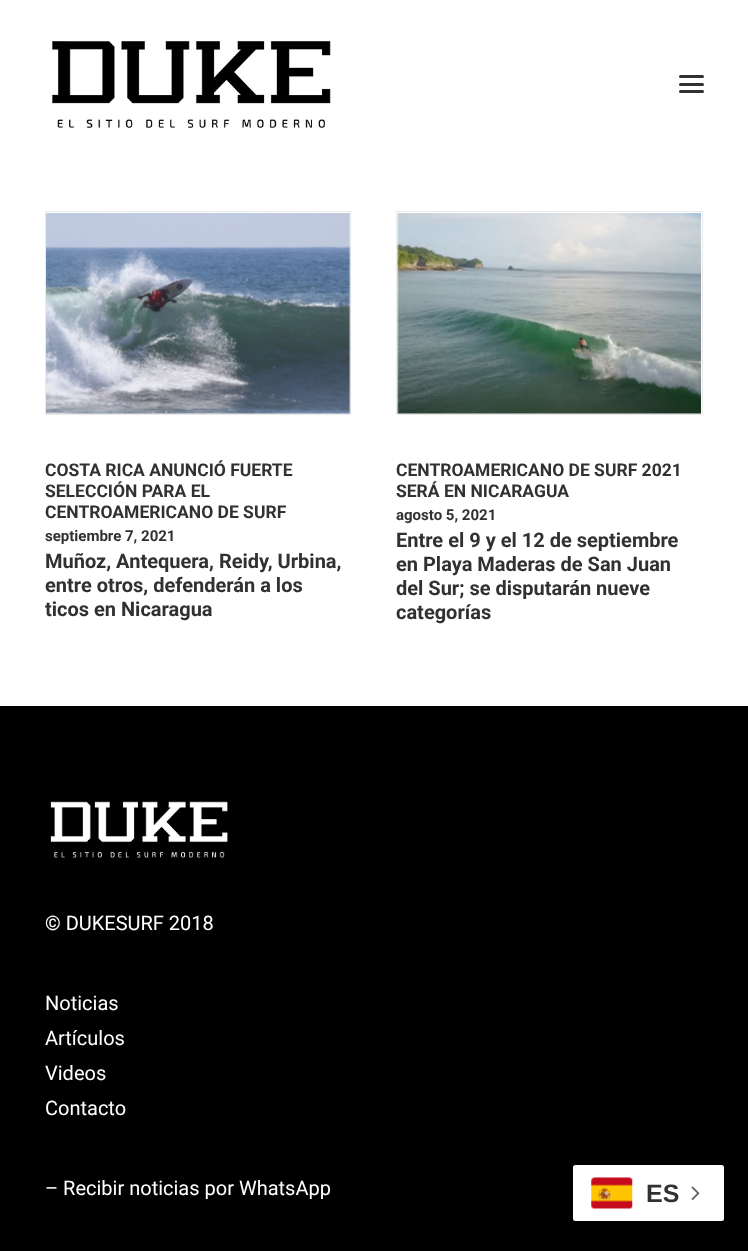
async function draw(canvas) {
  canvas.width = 748;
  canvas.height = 1251;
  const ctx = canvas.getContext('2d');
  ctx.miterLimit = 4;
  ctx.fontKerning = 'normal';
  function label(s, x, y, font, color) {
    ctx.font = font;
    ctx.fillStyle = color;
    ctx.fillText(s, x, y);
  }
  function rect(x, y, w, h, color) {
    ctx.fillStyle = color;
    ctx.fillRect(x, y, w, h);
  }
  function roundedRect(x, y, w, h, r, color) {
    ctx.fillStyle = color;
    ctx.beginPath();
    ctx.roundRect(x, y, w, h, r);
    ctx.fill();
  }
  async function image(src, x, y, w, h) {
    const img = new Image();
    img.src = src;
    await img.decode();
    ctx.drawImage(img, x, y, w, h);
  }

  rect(0, 0, 748, 1251, '#fff');
  await image('assets/img1.png', 52, 41, 279, 87);
  roundedRect(679, 83, 25, 3, 1.5, '#303133');
  roundedRect(679, 75, 25, 3, 1.5, '#303133');
  roundedRect(679, 90, 25, 3, 1.5, '#303133');
  ctx.strokeStyle = '#eaeaea';
  ctx.strokeRect(45.5, 211.5, 305, 203);
  await image('assets/img2.png', 46, 213, 305, 202);
  label('COSTA RICA ANUNCIÓ FUERTE', 45, 476, 'bold 17.5px Roboto', '#303133');
  label('SELECCIÓN PARA EL', 45, 497, 'bold 17.5px Roboto', '#303133');
  label('CENTROAMERICANO DE SURF', 45, 518, 'bold 17.5px Roboto', '#303133');
  label('septiembre 7, 2021', 45, 541, 'bold 15px Roboto', '#303133');
  label('Muñoz, Antequera, Reidy, Urbina,', 45, 568, 'bold 20px Roboto', '#303133');
  label('entre otros, defenderán a los', 45, 592, 'bold 20px Roboto', '#303133');
  label('ticos en Nicaragua', 45, 616, 'bold 20px Roboto', '#303133');
  ctx.strokeRect(396.5, 211.5, 306, 203);
  await image('assets/img3.png', 397, 213, 304, 202);
  label('CENTROAMERICANO DE SURF 2021', 396, 476, 'bold 17.5px Roboto', '#303133');
  label('SERÁ EN NICARAGUA', 396, 497, 'bold 17.5px Roboto', '#303133');
  label('agosto 5, 2021', 396, 520, 'bold 15px Roboto', '#303133');
  label('Entre el 9 y el 12 de septiembre', 396, 547, 'bold 20px Roboto', '#303133');
  label('en Playa Maderas de San Juan', 396, 571, 'bold 20px Roboto', '#303133');
  label('del Sur; se disputarán nueve', 396, 595, 'bold 20px Roboto', '#303133');
  label('categorías', 396, 619, 'bold 20px Roboto', '#303133');
  rect(0, 706, 748, 545, '#000');
  await image('assets/img4.png', 50, 801, 178, 57);
  label('© DUKESURF 2018', 45, 930, '20px Roboto', '#fff');
  label('Noticias', 45, 1010, '20px Roboto', '#fff');
  label('Artículos', 45, 1045, '20px Roboto', '#fff');
  label('Videos', 45, 1080, '20px Roboto', '#fff');
  label('Contacto', 45, 1115, '20px Roboto', '#fff');
  label('– Recibir noticias por WhatsApp', 45, 1195, '20px Roboto', '#fff');
  roundedRect(573, 1165, 151, 56, 2.5, '#fff');
  await image('assets/img5.png', 591, 1177, 42, 32);
  label('ES', 646, 1202, 'bold 25px Liberation Sans', '#303133');
  await image('assets/img6.png', 691, 1186, 9, 14);
}

draw(document.querySelector('canvas'));
